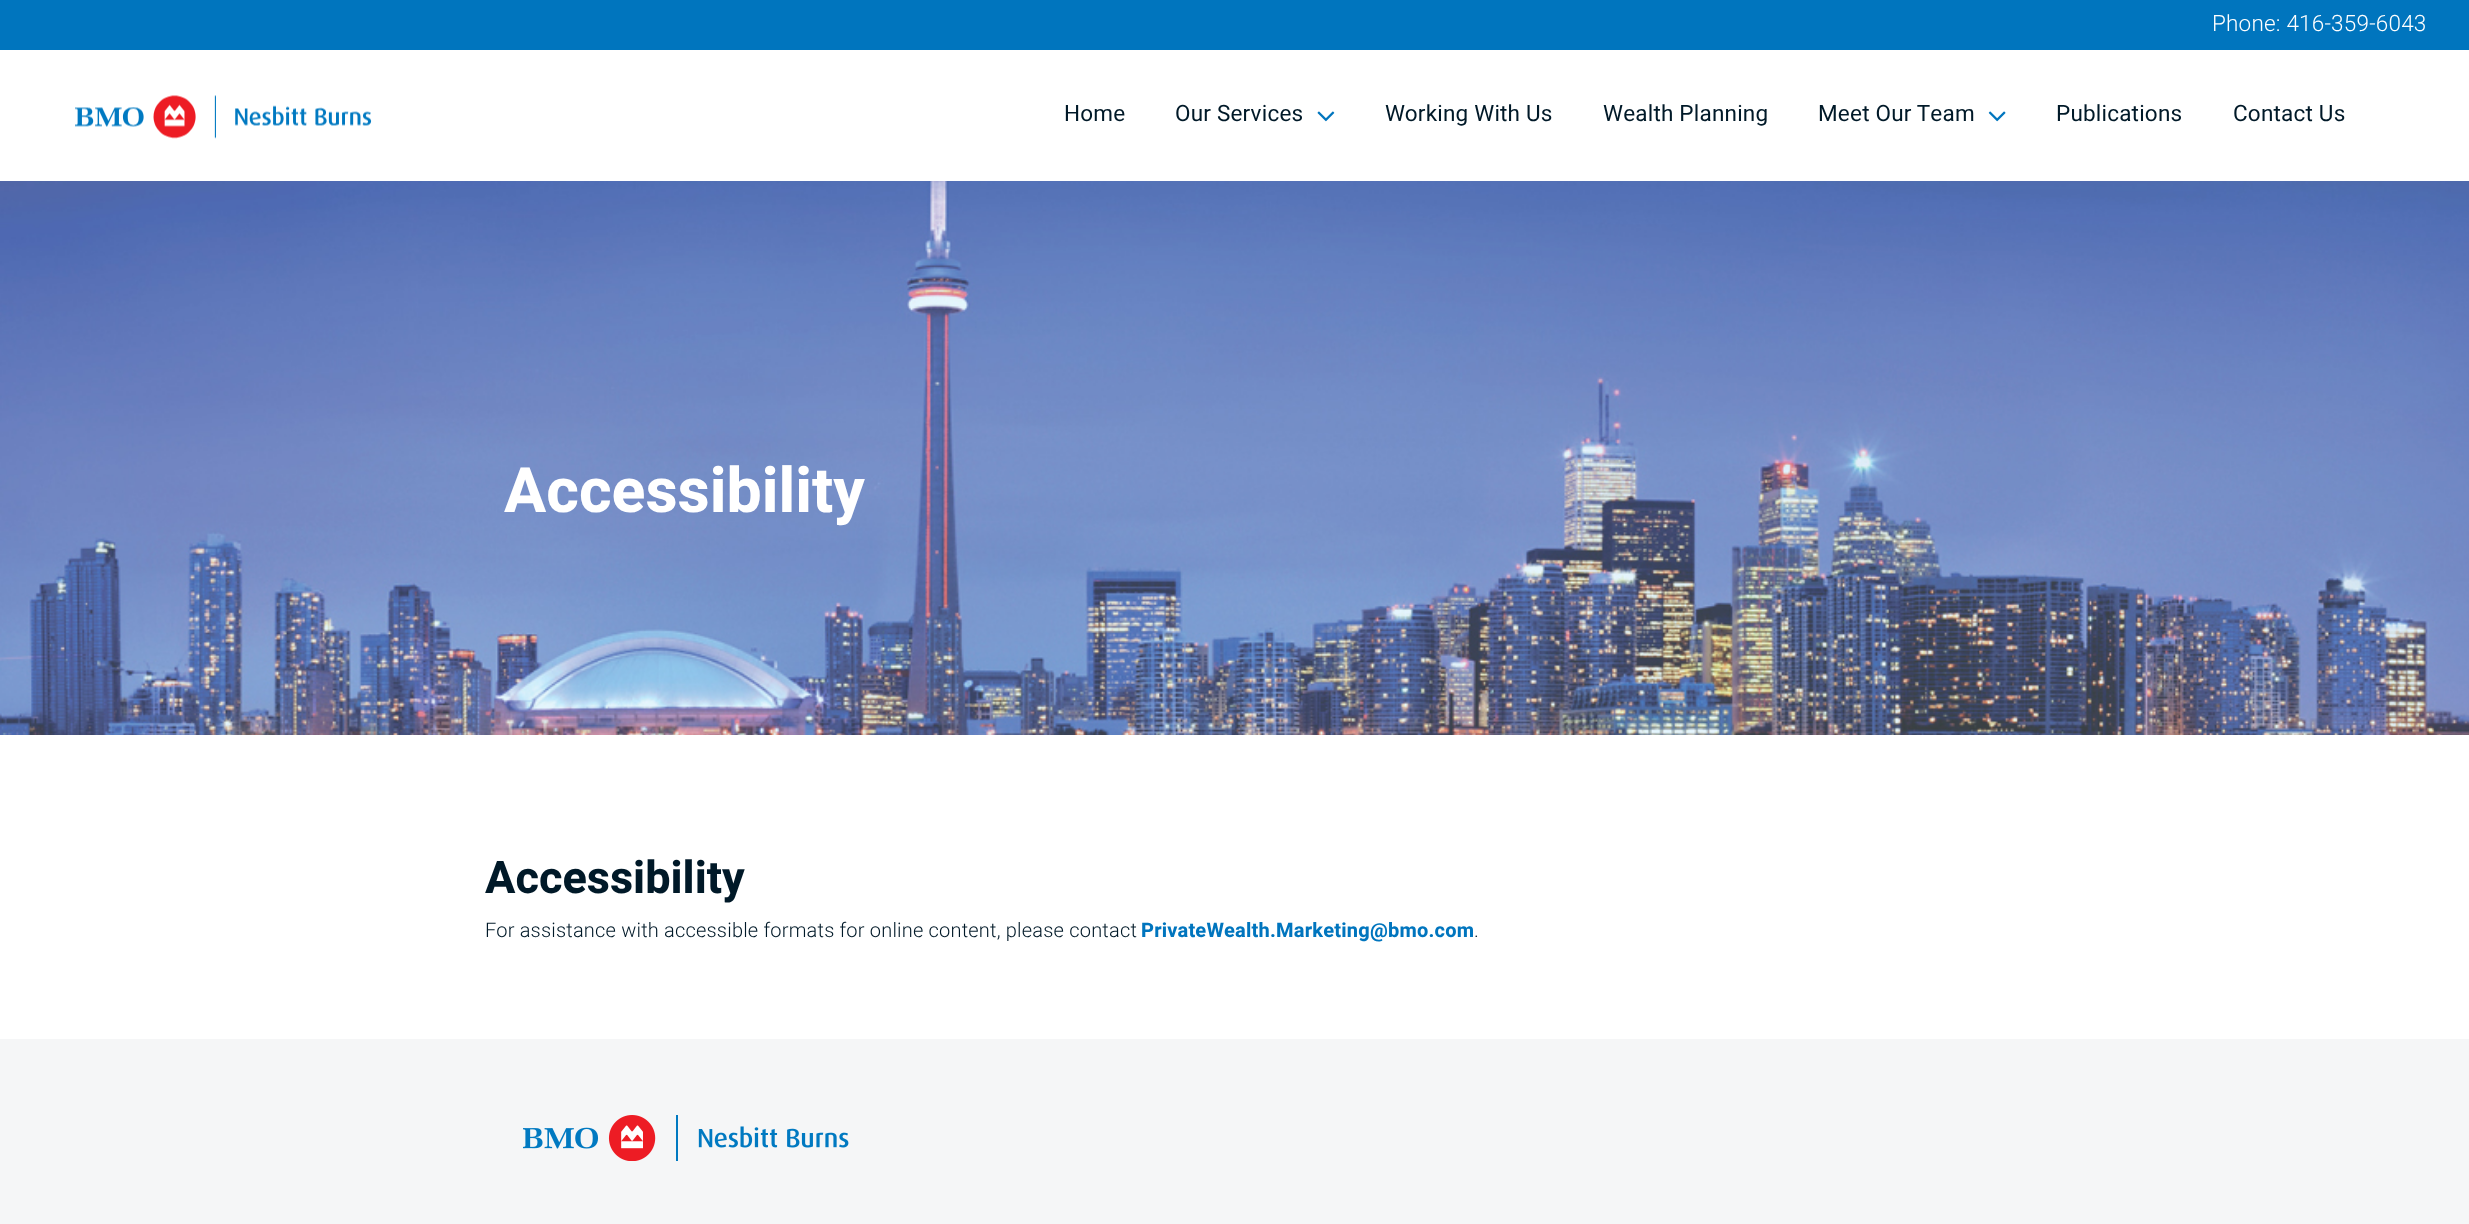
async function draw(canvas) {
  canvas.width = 2469;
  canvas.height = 1224;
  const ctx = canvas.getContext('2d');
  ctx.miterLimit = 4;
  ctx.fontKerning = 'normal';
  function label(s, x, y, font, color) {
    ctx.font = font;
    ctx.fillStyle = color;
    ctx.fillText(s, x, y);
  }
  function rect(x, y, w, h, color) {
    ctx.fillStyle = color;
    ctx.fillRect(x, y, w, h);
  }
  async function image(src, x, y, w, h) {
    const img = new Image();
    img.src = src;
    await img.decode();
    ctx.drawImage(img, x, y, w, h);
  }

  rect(0, 0, 2469, 1224, '#fff');
  rect(0, 0, 2469, 50, '#0075be');
  ctx.letterSpacing = '0.2px';
  label('Phone: 416-359-6043', 2212, 31, '300 22.5px Heebo', '#fff');
  await image('assets/img1.png', 75, 95, 297, 44);
  label('Home', 1064, 121, '22.5px Heebo', '#001928');
  label('Our Services', 1175, 121, '22.5px Heebo', '#001928');
  await image('assets/img2.png', 1317, 111, 18, 11);
  label('Working With Us', 1385, 121, '22.5px Heebo', '#001928');
  label('Wealth Planning', 1603, 121, '22.5px Heebo', '#001928');
  label('Meet Our Team', 1818, 121, '22.5px Heebo', '#001928');
  await image('assets/img3.png', 1988, 111, 18, 11);
  label('Publications', 2056, 121, '22.5px Heebo', '#001928');
  label('Contact Us', 2233, 121, '22.5px Heebo', '#001928');
  await image('assets/img4.png', 0, 181, 2469, 554);
  ctx.letterSpacing = '0px';
  label('Accessibility', 504, 512, 'bold 62.5px Heebo', '#fff');
  label('Accessibility', 485, 893, 'bold 45px Heebo', '#001928');
  ctx.letterSpacing = '0.2px';
  label('For assistance with accessible formats for online content, please contact', 485, 937, '300 20px Heebo', '#001928');
  label('PrivateWealth.Marketing@bmo.com', 1141, 937, 'bold 20px Heebo', '#0075be');
  label('.', 1474, 937, '300 20px Heebo', '#001928');
  rect(0, 1039, 2469, 185, '#f5f6f7');
  await image('assets/img5.png', 523, 1115, 326, 46);
}

draw(document.querySelector('canvas'));
